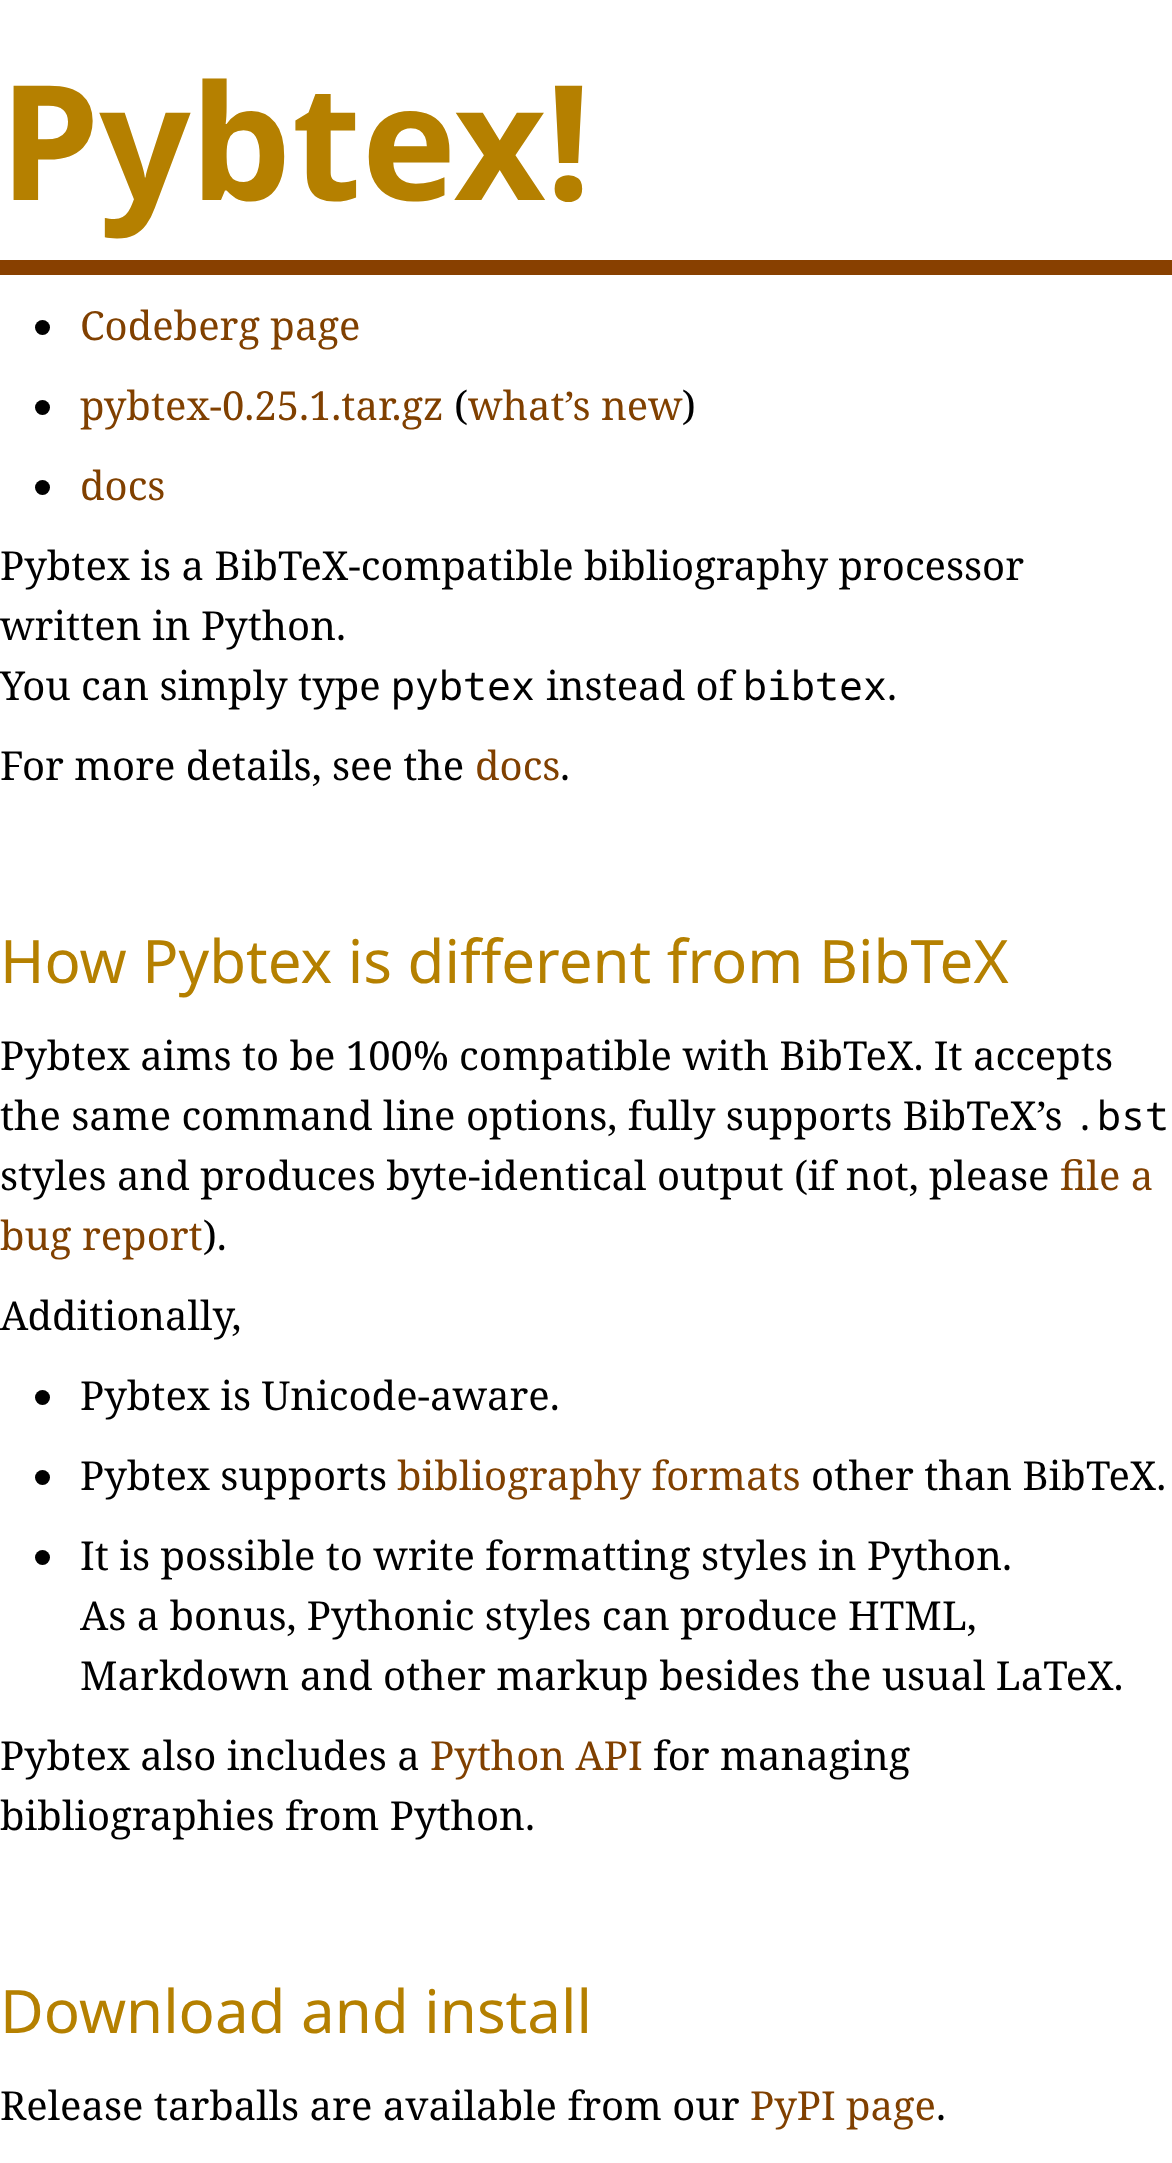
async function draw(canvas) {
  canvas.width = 1172;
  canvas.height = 2163;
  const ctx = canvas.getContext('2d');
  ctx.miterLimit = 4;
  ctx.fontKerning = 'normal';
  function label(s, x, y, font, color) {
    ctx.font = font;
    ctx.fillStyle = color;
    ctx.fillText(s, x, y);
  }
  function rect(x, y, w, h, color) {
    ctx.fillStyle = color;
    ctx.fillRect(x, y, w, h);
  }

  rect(0, 0, 1172, 2163, '#fff');
  rect(0, 260, 1172, 15, '#884000');
  label('Pybtex!', 0, 200, 'bold 160px Noto Sans', '#b58000');
  ctx.fillStyle = '#000';
  ctx.beginPath();
  ctx.arc(42.5, 327.5, 7.5, 0, 2 * Math.PI);
  ctx.fill();
  label('Codeberg page', 80, 340, '40px Noto Serif', '#804000');
  ctx.fillStyle = '#000';
  ctx.beginPath();
  ctx.arc(42.5, 407.5, 7.5, 0, 2 * Math.PI);
  ctx.fill();
  label('pybtex-0.25.1.tar.gz', 80, 420, '40px Noto Serif', '#804000');
  label('(', 454, 420, '40px Noto Serif', '#000');
  label('what’s new', 468, 420, '40px Noto Serif', '#804000');
  label(')', 682, 420, '40px Noto Serif', '#000');
  ctx.beginPath();
  ctx.arc(42.5, 487.5, 7.5, 0, 2 * Math.PI);
  ctx.fill();
  label('docs', 80, 500, '40px Noto Serif', '#804000');
  label('Pybtex is a BibTeX-compatible bibliography processor', 0, 580, '40px Noto Serif', '#000');
  label('written in Python.', 0, 640, '40px Noto Serif', '#000');
  label('You can simply type', 0, 700, '40px Noto Serif', '#000');
  label('pybtex', 391, 700, '40px Noto Sans Mono', '#000');
  label('instead of', 546, 700, '40px Noto Serif', '#000');
  label('bibtex', 743, 700, '40px Noto Sans Mono', '#000');
  label('.', 887, 700, '40px Noto Serif', '#000');
  label('For more details, see the', 0, 780, '40px Noto Serif', '#000');
  label('docs', 475, 780, '40px Noto Serif', '#804000');
  label('.', 560, 780, '40px Noto Serif', '#000');
  label('How Pybtex is different from BibTeX', 0, 983, '60px Noto Sans', '#b58000');
  label('Pybtex aims to be 100% compatible with BibTeX. It accepts', 0, 1070, '40px Noto Serif', '#000');
  label('the same command line options, fully supports BibTeX’s', 0, 1130, '40px Noto Serif', '#000');
  label('.bst', 1073, 1130, '40px Noto Sans Mono', '#000');
  label('styles and produces byte-identical output (if not, please', 0, 1190, '40px Noto Serif', '#000');
  label('file a', 1060, 1190, '40px Noto Serif', '#804000');
  label('bug report', 0, 1250, '40px Noto Serif', '#804000');
  label(').', 203, 1250, '40px Noto Serif', '#000');
  label('Additionally,', 0, 1330, '40px Noto Serif', '#000');
  ctx.beginPath();
  ctx.arc(42.5, 1397.5, 7.5, 0, 2 * Math.PI);
  ctx.fill();
  label('Pybtex is Unicode-aware.', 80, 1410, '40px Noto Serif', '#000');
  ctx.beginPath();
  ctx.arc(42.5, 1477.5, 7.5, 0, 2 * Math.PI);
  ctx.fill();
  label('Pybtex supports', 80, 1490, '40px Noto Serif', '#000');
  label('bibliography formats', 397, 1490, '40px Noto Serif', '#804000');
  label('other than BibTeX.', 811, 1490, '40px Noto Serif', '#000');
  ctx.beginPath();
  ctx.arc(42.5, 1557.5, 7.5, 0, 2 * Math.PI);
  ctx.fill();
  label('It is possible to write formatting styles in Python.', 80, 1570, '40px Noto Serif', '#000');
  label('As a bonus, Pythonic styles can produce HTML,', 80, 1630, '40px Noto Serif', '#000');
  label('Markdown and other markup besides the usual LaTeX.', 80, 1690, '40px Noto Serif', '#000');
  label('Pybtex also includes a', 0, 1770, '40px Noto Serif', '#000');
  label('Python API', 430, 1770, '40px Noto Serif', '#804000');
  label('for managing', 653, 1770, '40px Noto Serif', '#000');
  label('bibliographies from Python.', 0, 1830, '40px Noto Serif', '#000');
  label('Download and install', 0, 2033, '60px Noto Sans', '#b58000');
  label('Release tarballs are available from our', 0, 2120, '40px Noto Serif', '#000');
  label('PyPI page', 750, 2120, '40px Noto Serif', '#804000');
  label('.', 936, 2120, '40px Noto Serif', '#000');
}

draw(document.querySelector('canvas'));
